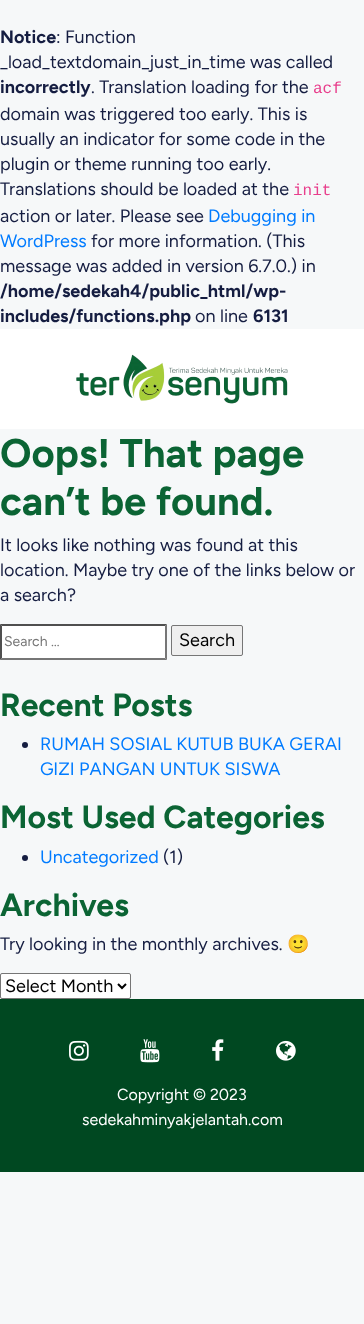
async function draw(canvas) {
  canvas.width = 364;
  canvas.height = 1324;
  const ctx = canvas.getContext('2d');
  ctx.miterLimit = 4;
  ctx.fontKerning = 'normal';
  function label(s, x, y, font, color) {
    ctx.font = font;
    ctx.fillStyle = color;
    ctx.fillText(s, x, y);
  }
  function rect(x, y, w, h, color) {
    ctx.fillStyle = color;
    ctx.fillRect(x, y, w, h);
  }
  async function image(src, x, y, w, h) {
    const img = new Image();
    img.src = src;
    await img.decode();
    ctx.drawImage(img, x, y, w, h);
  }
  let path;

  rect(0, 0, 364, 1324, '#f6f8f9');
  label('Notice', 0, 43, 'bold 18px Figtree', '#151d41');
  label(': Function', 56, 43, '18px Figtree', '#151d41');
  label('_load_textdomain_just_in_time was called', 0, 68, '18px Figtree', '#151d41');
  label('incorrectly', 0, 93, 'bold 18px Figtree', '#151d41');
  label('. Translation loading for the', 91, 93, '18px Figtree', '#151d41');
  label('acf', 313, 93, '16px Liberation Mono', '#e83e8c');
  label('domain was triggered too early. This is', 0, 120, '18px Figtree', '#151d41');
  label('usually an indicator for some code in the', 0, 145, '18px Figtree', '#151d41');
  label('plugin or theme running too early.', 0, 170, '18px Figtree', '#151d41');
  label('Translations should be loaded at the', 0, 195, '18px Figtree', '#151d41');
  label('init', 293, 195, '16px Liberation Mono', '#e83e8c');
  label('action or later. Please see', 0, 222, '18px Figtree', '#151d41');
  label('Debugging in', 208, 222, '18px Figtree', '#007bff');
  label('WordPress', 0, 247, '18px Figtree', '#007bff');
  label('for more information. (This', 91, 247, '18px Figtree', '#151d41');
  label('message was added in version 6.7.0.) in', 0, 272, '18px Figtree', '#151d41');
  label('/home/sedekah4/public_html/wp-', 0, 297, 'bold 18px Figtree', '#151d41');
  label('includes/functions.php', 0, 322, 'bold 18px Figtree', '#151d41');
  label('on line', 195, 322, '18px Figtree', '#151d41');
  label('6131', 253, 322, 'bold 18px Figtree', '#151d41');
  rect(0, 329, 364, 100, '#fff');
  await image('assets/img1.png', 76, 354, 212, 50);
  label('Oops! That page', 0, 467, 'bold 40px Figtree', '#0b6434');
  label('can’t be found.', 0, 515, 'bold 40px Figtree', '#0b6434');
  label('It looks like nothing was found at this', 0, 551, '18px Figtree', '#151d41');
  label('location. Maybe try one of the links below or', 0, 576, '18px Figtree', '#151d41');
  label('a search?', 0, 601, '18px Figtree', '#151d41');
  rect(0, 624, 167, 36, '#fff');
  ctx.fillStyle = '#4f4f4f';
  path = new Path2D('M0 624H167L165 626H2Z');
  ctx.fill(path);
  ctx.fillStyle = '#767676';
  path = new Path2D('M167 624V660L165 658V626Z');
  ctx.fill(path);
  path = new Path2D('M167 660H0L2 658H165Z');
  ctx.fill(path);
  ctx.fillStyle = '#4f4f4f';
  path = new Path2D('M0 660V624L2 626V658Z');
  ctx.fill(path);
  label('Search …', 4, 646, '14px Figtree', '#757575');
  ctx.fillStyle = '#efefef';
  ctx.beginPath();
  ctx.roundRect(171.5, 625.5, 71, 30, 1.5);
  ctx.fill();
  ctx.strokeStyle = '#767676';
  ctx.stroke();
  label('Search', 179, 646, '18px Figtree', '#000');
  label('Recent Posts', 0, 716, 'bold 32px Figtree', '#0b6434');
  ctx.fillStyle = '#151d41';
  ctx.beginPath();
  ctx.arc(25, 745, 3, 0, 2 * Math.PI);
  ctx.fill();
  label('RUMAH SOSIAL KUTUB BUKA GERAI', 40, 750, '18px Figtree', '#007bff');
  label('GIZI PANGAN UNTUK SISWA', 40, 775, '18px Figtree', '#007bff');
  label('Most Used Categories', 0, 828, 'bold 32px Figtree', '#0b6434');
  ctx.fillStyle = '#151d41';
  ctx.beginPath();
  ctx.arc(25, 858, 3, 0, 2 * Math.PI);
  ctx.fill();
  label('Uncategorized', 40, 863, '18px Figtree', '#007bff');
  label('(1)', 163, 863, '18px Figtree', '#151d41');
  label('Archives', 0, 916, 'bold 32px Figtree', '#0b6434');
  label('Try looking in the monthly archives.', 0, 950, '18px Figtree', '#151d41');
  label('🙂', 287, 950, '18px Noto Color Emoji', '#151d41');
  ctx.fillStyle = '#fff';
  ctx.beginPath();
  ctx.roundRect(0.5, 973.5, 130, 25, 1.5);
  ctx.fill();
  ctx.stroke();
  path = new Path2D('M118 984L122 988L126 984');
  ctx.strokeStyle = '#000';
  ctx.lineWidth = 2;
  ctx.stroke(path);
  label('Select Month', 5, 992, '18px Figtree', '#000');
  rect(0, 999, 364, 173, '#004821');
  await image('assets/img2.png', 69, 1040, 20, 21);
  await image('assets/img3.png', 140, 1039, 20, 24);
  await image('assets/img4.png', 212, 1039, 12, 22);
  await image('assets/img5.png', 276, 1040, 20, 21);
  label('Copyright © 2023', 117, 1100, '16px Figtree', '#fff');
  label('sedekahminyakjelantah.com', 82, 1125, '16px Figtree', '#fff');
}

draw(document.querySelector('canvas'));
